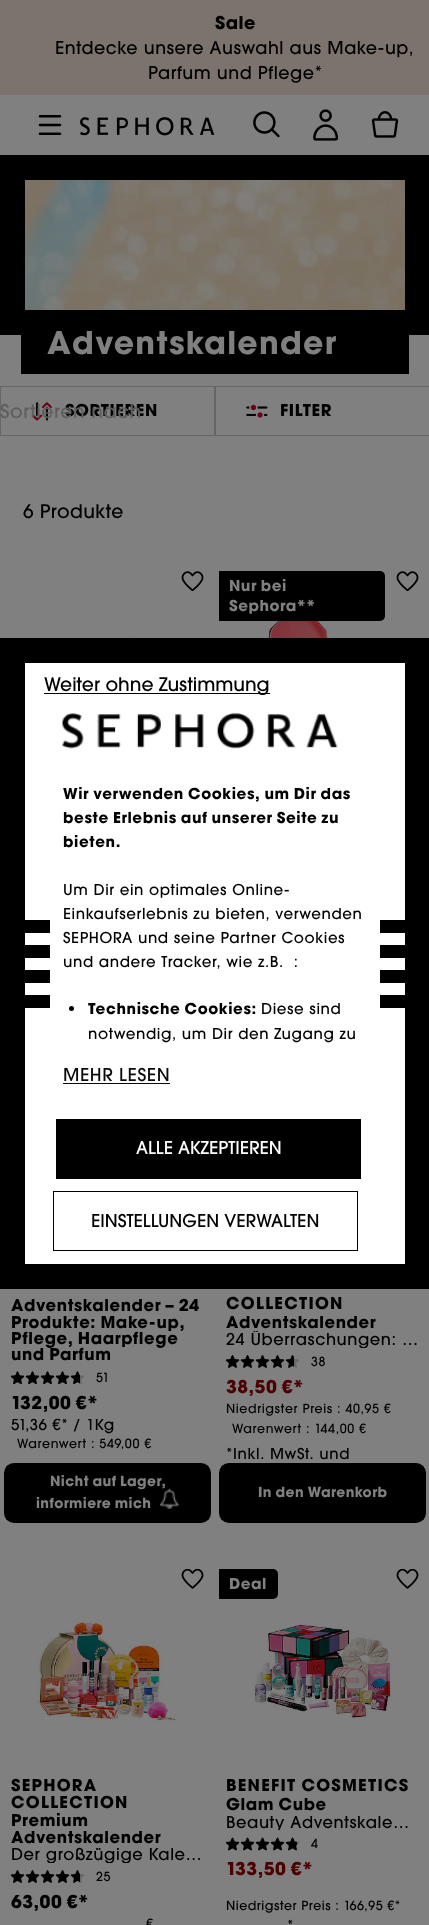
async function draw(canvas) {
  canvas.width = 429;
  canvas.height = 1925;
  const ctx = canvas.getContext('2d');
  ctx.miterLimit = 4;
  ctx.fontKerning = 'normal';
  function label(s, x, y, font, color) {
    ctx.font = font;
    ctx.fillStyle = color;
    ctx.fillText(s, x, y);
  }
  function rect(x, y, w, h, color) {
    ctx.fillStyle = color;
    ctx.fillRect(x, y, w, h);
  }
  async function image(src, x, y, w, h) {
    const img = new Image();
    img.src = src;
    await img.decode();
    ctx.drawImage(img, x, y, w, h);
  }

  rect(0, 0, 429, 1925, '#808080');
  rect(0, 0, 429, 95, '#7c736e');
  ctx.letterSpacing = '0.5px';
  label('Sale', 215, 29, 'bold 17.5px "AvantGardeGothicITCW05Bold"', '#000');
  label('Entdecke unsere Auswahl aus Make-up,', 55, 54, '500 17.5px "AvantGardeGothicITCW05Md"', '#000');
  label('Parfum und Pflege*', 148, 79, '500 17.5px "AvantGardeGothicITCW05Md"', '#000');
  await image('assets/img1.png', 38, 115, 24, 20);
  await image('assets/img2.png', 80, 117, 135, 19);
  await image('assets/img3.png', 253, 111, 27, 27);
  await image('assets/img4.png', 313, 109, 26, 32);
  await image('assets/img5.png', 371, 111, 28, 27);
  ctx.strokeStyle = '#000';
  ctx.lineWidth = 25;
  ctx.strokeRect(12.5, 167.5, 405, 155);
  await image('assets/img6.png', 25, 180, 380, 130);
  rect(21, 335, 388, 39, '#000');
  ctx.letterSpacing = '1.25px';
  label('Adventskalender', 47, 354, 'bold 31.25px "AvantGardeGothicITCW05Bold"', '#808080');
  ctx.strokeStyle = '#666';
  ctx.lineWidth = 1;
  ctx.strokeRect(0.5, 386.5, 214, 49);
  await image('assets/img7.png', 32, 402, 20, 19);
  ctx.letterSpacing = '0.6px';
  label('SORTIEREN', 65, 416, 'bold 16.25px "AvantGardeGothicITCW05Bold"', '#000');
  label('Sortieren nach', 0, 418, '500 18.75px "AvantGardeGothicITCW05Md"', '#5f5e5e');
  ctx.strokeRect(215.5, 386.5, 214, 49);
  await image('assets/img8.png', 246, 404, 22, 14);
  label('FILTER', 280, 416, 'bold 16.25px "AvantGardeGothicITCW05Bold"', '#000');
  ctx.letterSpacing = '0.4px';
  label('6 Produkte', 23, 518, '500 18.75px "AvantGardeGothicITCW05Md"', '#000');
  await image('assets/img9.png', 181, 571, 23, 20);
  await image('assets/img10.png', 37, 634, 141, 4);
  await image('assets/img11.png', 252, 611, 143, 27);
  ctx.beginPath();
  ctx.roundRect(219, 571, 166, 50, [0, 5, 5, 0]);
  ctx.fill();
  ctx.letterSpacing = '0.5px';
  label('Nur bei', 229, 591, 'bold 15px "AvantGardeGothicITCW05Bold"', '#808080');
  label('Sephora**', 229, 611, 'bold 15px "AvantGardeGothicITCW05Bold"', '#808080');
  await image('assets/img9.png', 396, 571, 23, 20);
  ctx.letterSpacing = '0.6px';
  label('Adventskalender – 24', 11, 1311, 'bold 16.25px "AvantGardeGothicITCW05Bold"', '#000');
  label('Produkte: Make-up,', 11, 1328, 'bold 16.25px "AvantGardeGothicITCW05Bold"', '#000');
  label('Pflege, Haarpflege', 11, 1344, 'bold 16.25px "AvantGardeGothicITCW05Bold"', '#000');
  label('und Parfum', 11, 1360, 'bold 16.25px "AvantGardeGothicITCW05Bold"', '#000');
  await image('assets/img12.png', 10, 1371, 15, 14);
  await image('assets/img12.png', 25, 1371, 15, 14);
  await image('assets/img12.png', 40, 1371, 15, 14);
  await image('assets/img12.png', 55, 1371, 15, 14);
  await image('assets/img13.png', 70, 1371, 15, 14);
  label('51', 96, 1382, '500 12.5px "AvantGardeGothicITCW05Md"', '#000');
  ctx.letterSpacing = '0.5px';
  label('132,00 €*', 11, 1409, 'bold 17.5px "AvantGardeGothicITCW05Bold"', '#000');
  label('51,36 €* / 1Kg', 11, 1430, '500 15px "AvantGardeGothicITCW05Md"', '#000');
  ctx.letterSpacing = '0.6px';
  label('Warenwert : 549,00 €', 17, 1448, '500 12.5px "AvantGardeGothicITCW05Md"', '#000');
  ctx.save();
  ctx.beginPath();
  ctx.roundRect(4, 1463, 207, 60, 10);
  ctx.clip();
  rect(6, 1465, 203, 55, '#000');
  ctx.restore();
  ctx.beginPath();
  ctx.roundRect(5.5, 1464.5, 204, 57, 8.5);
  ctx.strokeStyle = '#000';
  ctx.lineWidth = 3;
  ctx.stroke();
  ctx.letterSpacing = '0.4px';
  label('Nicht auf Lager,', 50, 1486, 'bold 13.75px "AvantGardeGothicITCW05Bold"', '#808080');
  label('informiere mich', 36, 1508, 'bold 13.75px "AvantGardeGothicITCW05Bold"', '#808080');
  await image('assets/img14.png', 160, 1488, 19, 21);
  ctx.letterSpacing = '1.25px';
  label('COLLECTION', 226, 1309, 'bold 16.25px "AvantGardeGothicITCW05Bold"', '#000');
  ctx.letterSpacing = '0.6px';
  label('Adventskalender', 226, 1328, 'bold 16.25px "AvantGardeGothicITCW05Bold"', '#000');
  ctx.save();
  ctx.beginPath();
  ctx.rect(225, 1331, 195, 17);
  ctx.clip();
  label('24 Überraschungen: …', 226, 1345, '500 16.25px "AvantGardeGothicITCW05Md"', '#000');
  ctx.restore();
  await image('assets/img15.png', 225, 1355, 15, 13);
  await image('assets/img15.png', 240, 1355, 15, 13);
  await image('assets/img15.png', 255, 1355, 15, 13);
  await image('assets/img15.png', 270, 1355, 15, 13);
  await image('assets/img16.png', 285, 1355, 15, 13);
  label('38', 311, 1366, '500 12.5px "AvantGardeGothicITCW05Md"', '#000');
  ctx.letterSpacing = '0.5px';
  label('38,50 €*', 226, 1393, 'bold 17.5px "AvantGardeGothicITCW05Bold"', '#4c0000');
  ctx.letterSpacing = '0.6px';
  label('Niedrigster Preis : 40,95 €', 226, 1413, '500 12.5px "AvantGardeGothicITCW05Md"', '#000');
  label('Warenwert : 144,00 €', 232, 1433, '500 12.5px "AvantGardeGothicITCW05Md"', '#000');
  label('*Inkl. MwSt. und', 226, 1459, '500 15px "AvantGardeGothicITCW05Md"', '#000');
  ctx.save();
  ctx.beginPath();
  ctx.roundRect(219, 1463, 207, 60, 10);
  ctx.clip();
  rect(221, 1465, 203, 55, '#000');
  ctx.restore();
  ctx.beginPath();
  ctx.roundRect(220.5, 1464.5, 204, 57, 8.5);
  ctx.stroke();
  ctx.letterSpacing = '0.4px';
  label('In den Warenkorb', 258, 1497, 'bold 13.75px "AvantGardeGothicITCW05Bold"', '#808080');
  await image('assets/img17.png', 181, 1569, 23, 20);
  await image('assets/img18.png', 37, 1621, 141, 101);
  ctx.letterSpacing = '1.25px';
  label('SEPHORA', 11, 1791, 'bold 16.25px "AvantGardeGothicITCW05Bold"', '#000');
  label('COLLECTION', 11, 1808, 'bold 16.25px "AvantGardeGothicITCW05Bold"', '#000');
  ctx.letterSpacing = '0.6px';
  label('Premium', 11, 1826, 'bold 16.25px "AvantGardeGothicITCW05Bold"', '#000');
  label('Adventskalender', 11, 1843, 'bold 16.25px "AvantGardeGothicITCW05Bold"', '#000');
  ctx.save();
  ctx.beginPath();
  ctx.rect(10, 1846, 195, 17);
  ctx.clip();
  label('Der großzügige Kale…', 11, 1860, '500 16.25px "AvantGardeGothicITCW05Md"', '#000');
  ctx.restore();
  await image('assets/img15.png', 10, 1870, 15, 13);
  await image('assets/img15.png', 25, 1870, 15, 13);
  await image('assets/img15.png', 40, 1870, 15, 13);
  await image('assets/img15.png', 55, 1870, 15, 13);
  await image('assets/img19.png', 70, 1870, 15, 13);
  label('25', 96, 1881, '500 12.5px "AvantGardeGothicITCW05Md"', '#000');
  ctx.letterSpacing = '0.5px';
  label('63,00 €*', 11, 1908, 'bold 17.5px "AvantGardeGothicITCW05Bold"', '#000');
  ctx.letterSpacing = '0.6px';
  label('€', 146, 1928, '500 12.5px "AvantGardeGothicITCW05Md"', '#000');
  ctx.beginPath();
  ctx.roundRect(219, 1569, 59, 30, [0, 5, 5, 0]);
  ctx.fill();
  ctx.letterSpacing = '0.5px';
  label('Deal', 229, 1589, 'bold 15px "AvantGardeGothicITCW05Bold"', '#808080');
  await image('assets/img17.png', 396, 1569, 23, 20);
  await image('assets/img20.png', 254, 1623, 139, 96);
  ctx.letterSpacing = '1.25px';
  label('BENEFIT COSMETICS', 226, 1791, 'bold 16.25px "AvantGardeGothicITCW05Bold"', '#000');
  ctx.letterSpacing = '0.6px';
  label('Glam Cube', 226, 1810, 'bold 16.25px "AvantGardeGothicITCW05Bold"', '#000');
  ctx.save();
  ctx.beginPath();
  ctx.rect(225, 1814, 195, 16);
  ctx.clip();
  label('Beauty Adventskale…', 226, 1828, '500 16.25px "AvantGardeGothicITCW05Md"', '#000');
  ctx.restore();
  await image('assets/img21.png', 225, 1837, 15, 14);
  await image('assets/img21.png', 240, 1837, 15, 14);
  await image('assets/img21.png', 255, 1837, 15, 14);
  await image('assets/img21.png', 270, 1837, 15, 14);
  await image('assets/img22.png', 285, 1837, 15, 14);
  label('4', 311, 1848, '500 12.5px "AvantGardeGothicITCW05Md"', '#000');
  ctx.letterSpacing = '0.5px';
  label('133,50 €*', 226, 1875, 'bold 17.5px "AvantGardeGothicITCW05Bold"', '#4c0000');
  label('Niedrigster Preis : 166,95 €*', 226, 1910, '500 12.5px "AvantGardeGothicITCW05Md"', '#000');
  label('*', 287, 1931, '500 15px "AvantGardeGothicITCW05Md"', '#000');
  ctx.fillStyle = '#fff';
  ctx.beginPath();
  ctx.rect(12.5, 650.5, 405, 626);
  ctx.fill();
  ctx.lineWidth = 25;
  ctx.stroke();
  rect(44, 693, 226, 1, '#000');
  ctx.letterSpacing = '0px';
  label('Weiter ohne Zustimmung', 44, 691, '500 18.75px "AvantGardeGothicITCW05Md"', '#000');
  ctx.letterSpacing = '0.6px';
  label('MEHR LESEN', 63, 1081, '500 17.5px "AvantGardeGothicITCW05Md"', '#0a0a0a');
  rect(63, 1083, 107, 1, '#0a0a0a');
  rect(56, 1119, 305, 60, '#000');
  ctx.letterSpacing = '0px';
  label('ALLE AKZEPTIEREN', 136, 1154, '500 17.5px "AvantGardeGothicITCW05Md"', '#fff');
  ctx.lineWidth = 1;
  ctx.strokeRect(53.5, 1191.5, 304, 59);
  label('EINSTELLUNGEN VERWALTEN', 91, 1227, '500 17.5px "AvantGardeGothicITCW05Md"', '#000');
  rect(25, 920, 25, 13, '#000');
  rect(25, 945, 25, 13, '#000');
  rect(25, 970, 25, 13, '#000');
  rect(25, 995, 25, 13, '#000');
  await image('assets/img23.png', 62, 712, 276, 37);
  ctx.letterSpacing = '0.6px';
  label('Wir verwenden Cookies, um Dir das', 63, 799, 'bold 15px "AvantGardeGothicITCW05Bold"', '#000');
  label('beste Erlebnis auf unserer Seite zu', 63, 823, 'bold 15px "AvantGardeGothicITCW05Bold"', '#000');
  label('bieten.', 63, 847, 'bold 15px "AvantGardeGothicITCW05Bold"', '#000');
  label('Um Dir ein optimales Online-', 63, 895, '500 15px "AvantGardeGothicITCW05Md"', '#000');
  label('Einkaufserlebnis zu bieten, verwenden', 63, 919, '500 15px "AvantGardeGothicITCW05Md"', '#000');
  label('SEPHORA und seine Partner Cookies', 63, 943, '500 15px "AvantGardeGothicITCW05Md"', '#000');
  label('und andere Tracker, wie z.B.  :', 63, 967, '500 15px "AvantGardeGothicITCW05Md"', '#000');
  ctx.beginPath();
  ctx.arc(71.5, 1008.5, 2.5, 0, 2 * Math.PI);
  ctx.fill();
  label('Technische Cookies:', 88, 1014, 'bold 15px "AvantGardeGothicITCW05Bold"', '#000');
  label('Diese sind', 261, 1014, '500 15px "AvantGardeGothicITCW05Md"', '#000');
  label('notwendig, um Dir den Zugang zu', 88, 1039, '500 15px "AvantGardeGothicITCW05Md"', '#000');
  rect(380, 920, 25, 13, '#000');
  rect(380, 945, 25, 13, '#000');
  rect(380, 970, 25, 13, '#000');
  rect(380, 995, 25, 13, '#000');
}

draw(document.querySelector('canvas'));
